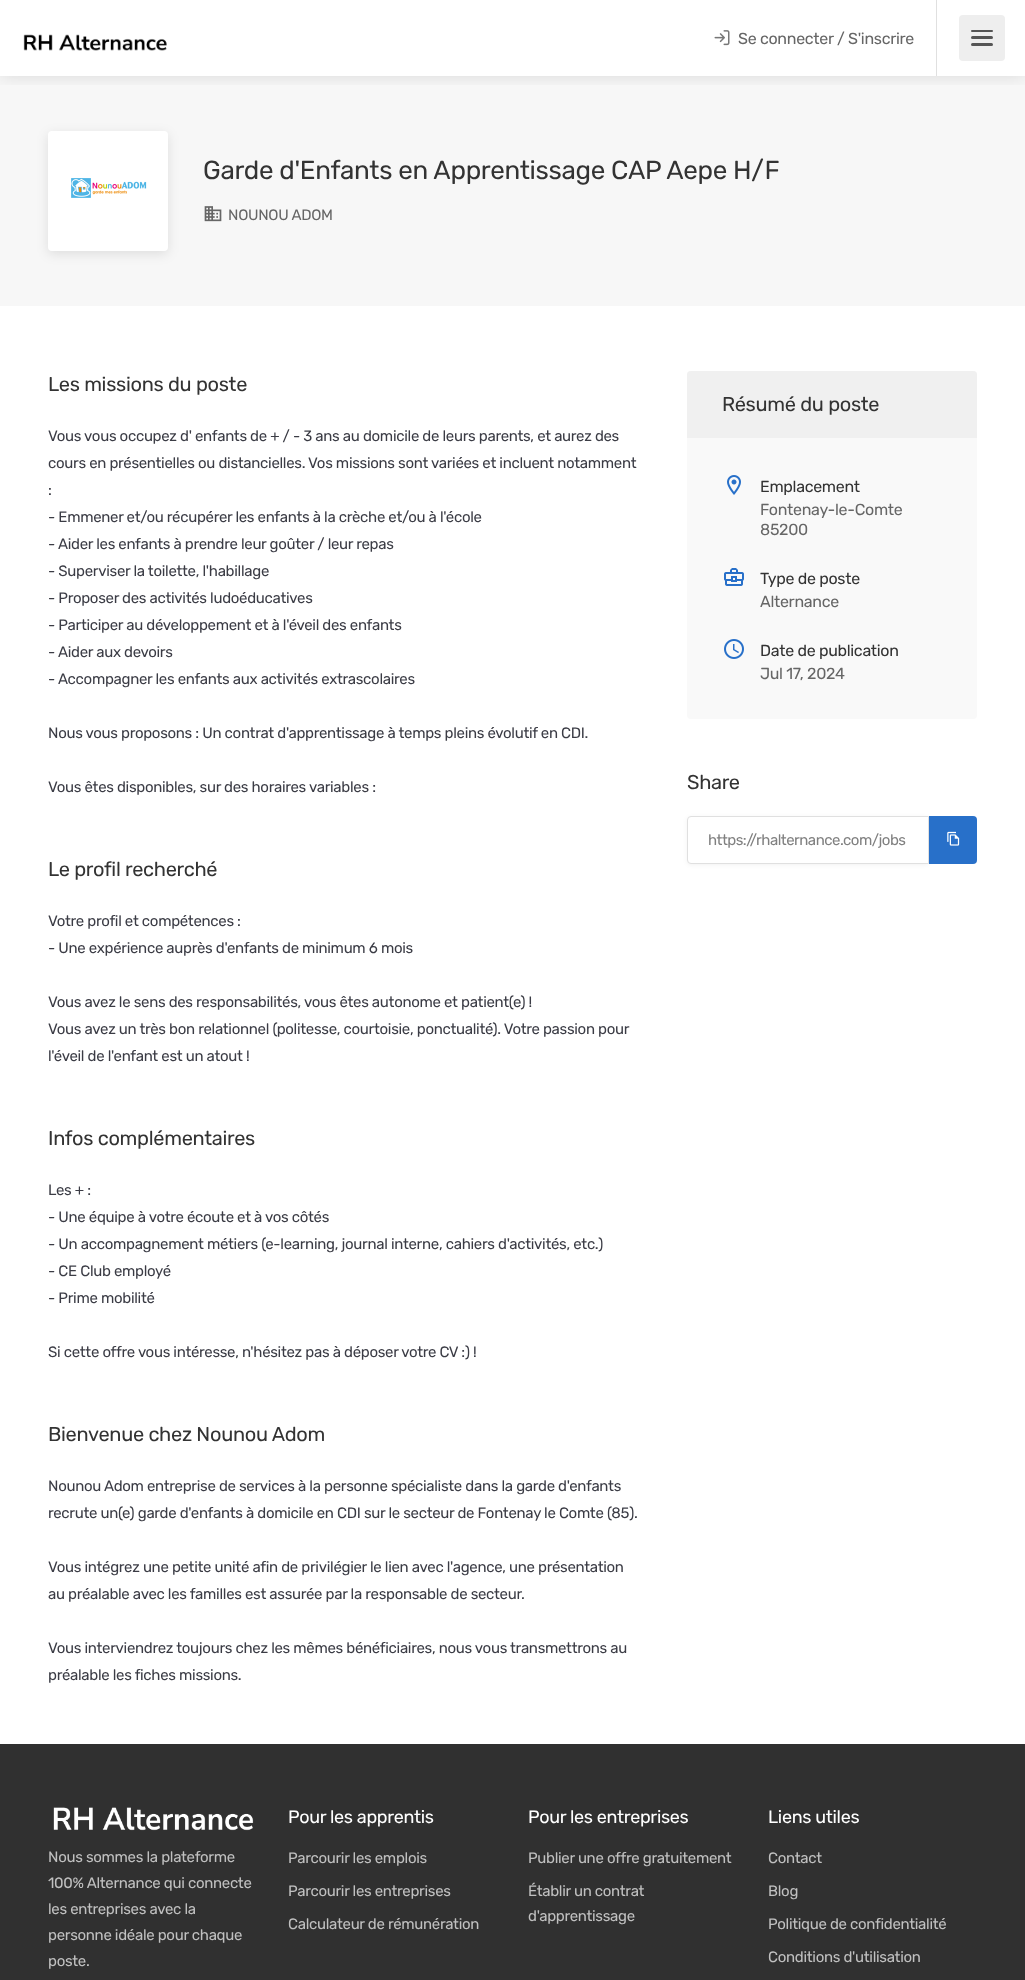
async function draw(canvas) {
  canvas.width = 1025;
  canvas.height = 1980;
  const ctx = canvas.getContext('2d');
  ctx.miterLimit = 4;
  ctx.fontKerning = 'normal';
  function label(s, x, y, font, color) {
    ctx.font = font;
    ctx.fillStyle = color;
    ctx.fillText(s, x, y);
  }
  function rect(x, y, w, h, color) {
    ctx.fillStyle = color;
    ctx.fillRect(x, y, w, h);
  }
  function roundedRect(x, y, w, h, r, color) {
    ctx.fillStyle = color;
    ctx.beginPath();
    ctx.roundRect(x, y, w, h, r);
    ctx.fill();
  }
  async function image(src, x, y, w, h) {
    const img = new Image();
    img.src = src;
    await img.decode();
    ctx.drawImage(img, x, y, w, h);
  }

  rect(0, 0, 1025, 1980, '#fff');
  rect(0, 76, 1025, 230, '#f7f7f7');
  ctx.save();
  ctx.beginPath();
  ctx.rect(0, 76, 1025, 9);
  ctx.clip();
  ctx.fillStyle = '#0000001f';
  ctx.filter = 'blur(9px)';
  ctx.beginPath();
  ctx.rect(0, 0, 1025, 76);
  ctx.fill();
  ctx.filter = 'none';
  ctx.restore();
  await image('assets/img1.png', 23, 34, 144, 17);
  rect(936, 0, 1, 76, '#e0e0e0');
  await image('assets/img2.png', 714, 30, 16, 16);
  ctx.letterSpacing = '-0.3px';
  label('Se connecter / S\'inscrire', 738, 44, '16px Rubik', '#666');
  roundedRect(959, 15, 46, 46, 4, '#eee');
  roundedRect(971, 43, 22, 3, 1.5, '#555');
  roundedRect(971, 30, 22, 2, 1, '#555');
  roundedRect(971, 36, 22, 3, 1.5, '#555');
  ctx.fillStyle = '#0000001a';
  ctx.filter = 'blur(6px)';
  ctx.beginPath();
  ctx.roundRect(48, 134, 120, 120, 4);
  ctx.fill();
  ctx.filter = 'none';
  roundedRect(48, 131, 120, 120, 4, '#fff');
  await image('assets/img3.png', 71, 178, 76, 20);
  label('Garde d\'Enfants en Apprentissage CAP Aepe H/F', 203, 179, '26px Rubik', '#333');
  await image('assets/img4.png', 204, 206, 18, 16);
  label('NOUNOU ADOM', 228, 220, '15px Rubik', '#666');
  label('Les missions du poste', 48, 391, '20px Rubik', '#333');
  label('Vous vous occupez d\' enfants de + / - 3 ans au domicile de leurs parents, et aurez des', 48, 441, '15px Rubik', '#3b3c45');
  label('cours en présentielles ou distancielles. Vos missions sont variées et incluent notamment', 48, 468, '15px Rubik', '#3b3c45');
  label(':', 48, 495, '15px Rubik', '#3b3c45');
  label('- Emmener et/ou récupérer les enfants à la crèche et/ou à l\'école', 48, 522, '15px Rubik', '#3b3c45');
  label('- Aider les enfants à prendre leur goûter / leur repas', 48, 549, '15px Rubik', '#3b3c45');
  label('- Superviser la toilette, l\'habillage', 48, 576, '15px Rubik', '#3b3c45');
  label('- Proposer des activités ludoéducatives', 48, 603, '15px Rubik', '#3b3c45');
  label('- Participer au développement et à l\'éveil des enfants', 48, 630, '15px Rubik', '#3b3c45');
  label('- Aider aux devoirs', 48, 657, '15px Rubik', '#3b3c45');
  label('- Accompagner les enfants aux activités extrascolaires', 48, 684, '15px Rubik', '#3b3c45');
  label('Nous vous proposons : Un contrat d\'apprentissage à temps pleins évolutif en CDI.', 48, 738, '15px Rubik', '#3b3c45');
  label('Vous êtes disponibles, sur des horaires variables :', 48, 792, '15px Rubik', '#3b3c45');
  label('Le profil recherché', 48, 876, '20px Rubik', '#333');
  label('Votre profil et compétences :', 48, 926, '15px Rubik', '#3b3c45');
  label('- Une expérience auprès d\'enfants de minimum 6 mois', 48, 953, '15px Rubik', '#3b3c45');
  label('Vous avez le sens des responsabilités, vous êtes autonome et patient(e) !', 48, 1007, '15px Rubik', '#3b3c45');
  label('Vous avez un très bon relationnel (politesse, courtoisie, ponctualité). Votre passion pour', 48, 1034, '15px Rubik', '#3b3c45');
  label('l\'éveil de l\'enfant est un atout !', 48, 1061, '15px Rubik', '#3b3c45');
  label('Infos complémentaires', 48, 1145, '20px Rubik', '#333');
  label('Les + :', 48, 1195, '15px Rubik', '#3b3c45');
  label('- Une équipe à votre écoute et à vos côtés', 48, 1222, '15px Rubik', '#3b3c45');
  label('- Un accompagnement métiers (e-learning, journal interne, cahiers d\'activités, etc.)', 48, 1249, '15px Rubik', '#3b3c45');
  label('- CE Club employé', 48, 1276, '15px Rubik', '#3b3c45');
  label('- Prime mobilité', 48, 1303, '15px Rubik', '#3b3c45');
  label('Si cette offre vous intéresse, n\'hésitez pas à déposer votre CV :) !', 48, 1357, '15px Rubik', '#3b3c45');
  label('Bienvenue chez Nounou Adom', 48, 1441, '20px Rubik', '#333');
  label('Nounou Adom entreprise de services à la personne spécialiste dans la garde d\'enfants', 48, 1491, '15px Rubik', '#3b3c45');
  label('recrute un(e) garde d\'enfants à domicile en CDI sur le secteur de Fontenay le Comte (85).', 48, 1518, '15px Rubik', '#3b3c45');
  label('Vous intégrez une petite unité afin de privilégier le lien avec l\'agence, une présentation', 48, 1572, '15px Rubik', '#3b3c45');
  label('au préalable avec les familles est assurée par la responsable de secteur.', 48, 1599, '15px Rubik', '#3b3c45');
  label('Vous interviendrez toujours chez les mêmes bénéficiaires, nous vous transmettrons au', 48, 1653, '15px Rubik', '#3b3c45');
  label('préalable les fiches missions.', 48, 1680, '15px Rubik', '#3b3c45');
  roundedRect(687, 371, 290, 348, 4, '#f9f9f9');
  ctx.fillStyle = '#f0f0f0';
  ctx.beginPath();
  ctx.roundRect(687, 371, 290, 67, [4, 4, 0, 0]);
  ctx.fill();
  label('Résumé du poste', 722, 411, '20px Rubik', '#333');
  await image('assets/img5.png', 727, 475, 14, 20);
  label('Emplacement', 760, 492, '16px Rubik', '#333');
  label('Fontenay-le-Comte', 760, 515, '16px Rubik', '#666');
  label('85200', 760, 535, '16px Rubik', '#666');
  await image('assets/img6.png', 724, 568, 20, 18);
  label('Type de poste', 760, 584, '16px Rubik', '#333');
  label('Alternance', 760, 607, '16px Rubik', '#666');
  await image('assets/img7.png', 724, 639, 20, 20);
  label('Date de publication', 760, 656, '16px Rubik', '#333');
  label('Jul 17, 2024', 760, 679, '16px Rubik', '#666');
  label('Share', 687, 789, '20px Rubik', '#333');
  ctx.fillStyle = '#0000000d';
  ctx.filter = 'blur(2px)';
  ctx.beginPath();
  ctx.roundRect(687, 817, 242, 48, 4);
  ctx.fill();
  ctx.filter = 'none';
  ctx.fillStyle = '#fff';
  ctx.beginPath();
  ctx.roundRect(687.5, 816.5, 241, 47, [3.5, 0, 0, 3.5]);
  ctx.fill();
  ctx.strokeStyle = '#e0e0e0';
  ctx.stroke();
  ctx.letterSpacing = '-0.5px';
  label('https://rhalternance.com/jobs', 708, 845, '15px Rubik', '#808080');
  ctx.fillStyle = '#2870c9';
  ctx.beginPath();
  ctx.roundRect(929, 816, 48, 48, [0, 4, 4, 0]);
  ctx.fill();
  await image('assets/img8.png', 947, 831, 13, 15);
  rect(0, 1744, 1025, 236, '#303030');
  await image('assets/img9.png', 53, 1807, 201, 24);
  ctx.letterSpacing = '-0.3px';
  label('Nous sommes la plateforme', 48, 1862, '15px Rubik', '#c0c0c0');
  label('100% Alternance qui connecte', 48, 1888, '15px Rubik', '#c0c0c0');
  label('les entreprises avec la', 48, 1914, '15px Rubik', '#c0c0c0');
  label('personne idéale pour chaque', 48, 1940, '15px Rubik', '#c0c0c0');
  label('poste.', 48, 1966, '15px Rubik', '#c0c0c0');
  label('Pour les apprentis', 288, 1823, '18px Rubik', '#fff');
  label('Parcourir les emplois', 288, 1863, '15px Rubik', '#c0c0c0');
  label('Parcourir les entreprises', 288, 1896, '15px Rubik', '#c0c0c0');
  label('Calculateur de rémunération', 288, 1929, '15px Rubik', '#c0c0c0');
  label('Pour les entreprises', 528, 1823, '18px Rubik', '#fff');
  label('Publier une offre gratuitement', 528, 1863, '15px Rubik', '#c0c0c0');
  label('Établir un contrat', 528, 1896, '15px Rubik', '#c0c0c0');
  label('d\'apprentissage', 528, 1921, '15px Rubik', '#c0c0c0');
  label('Liens utiles', 768, 1823, '18px Rubik', '#fff');
  label('Contact', 768, 1863, '15px Rubik', '#c0c0c0');
  label('Blog', 768, 1896, '15px Rubik', '#c0c0c0');
  label('Politique de confidentialité', 768, 1929, '15px Rubik', '#c0c0c0');
  label('Conditions d\'utilisation', 768, 1962, '15px Rubik', '#c0c0c0');
}

draw(document.querySelector('canvas'));
